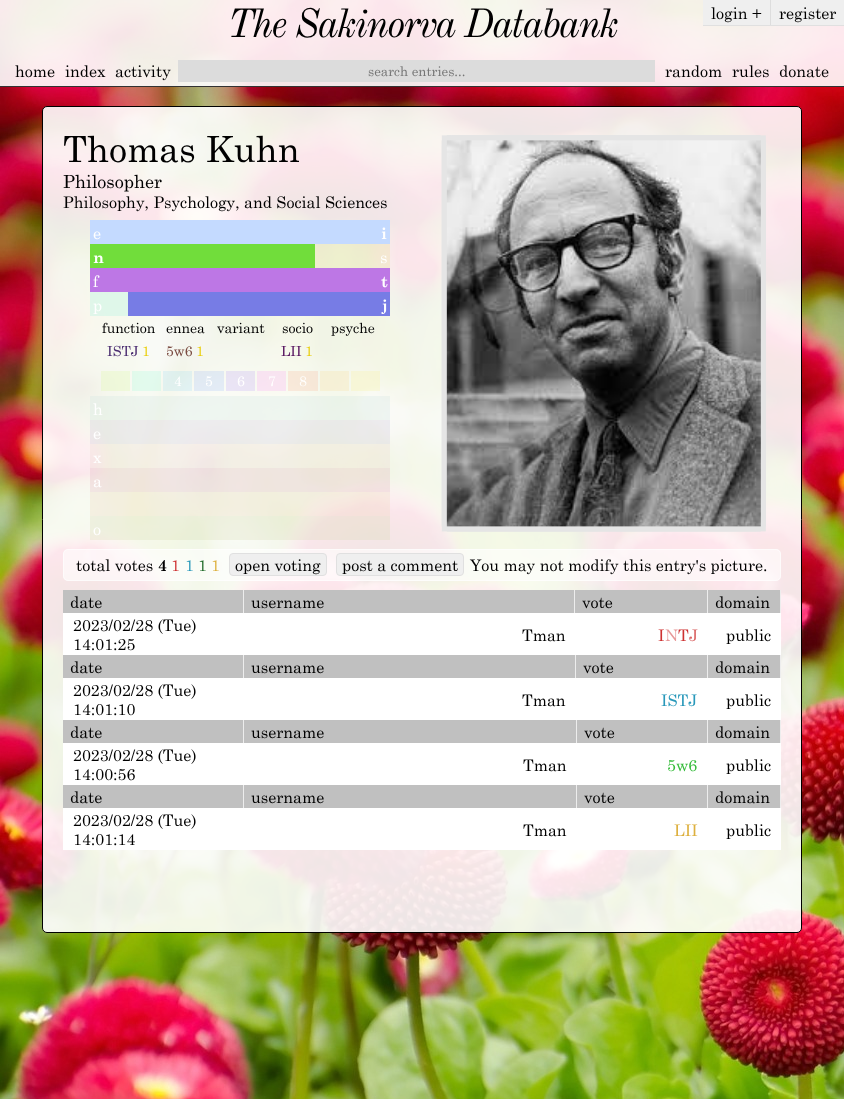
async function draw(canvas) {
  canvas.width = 844;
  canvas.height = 1099;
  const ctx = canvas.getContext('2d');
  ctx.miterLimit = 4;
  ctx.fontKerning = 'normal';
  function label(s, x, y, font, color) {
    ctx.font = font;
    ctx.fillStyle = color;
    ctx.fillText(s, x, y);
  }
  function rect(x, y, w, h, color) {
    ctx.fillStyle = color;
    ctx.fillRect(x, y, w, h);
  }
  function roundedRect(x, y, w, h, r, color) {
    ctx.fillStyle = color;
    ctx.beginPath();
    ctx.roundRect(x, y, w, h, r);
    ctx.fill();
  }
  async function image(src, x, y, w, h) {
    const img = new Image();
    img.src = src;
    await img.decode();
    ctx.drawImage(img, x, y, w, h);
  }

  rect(0, 0, 844, 1099, '#fff');
  await image('assets/img1.png', 0, 0, 844, 1099);
  rect(0, 0, 844, 55, '#ffffffe6');
  ctx.letterSpacing = '-2px';
  label('The Sakinorva Databank', 227, 37, 'italic 40px Old Standard TT', '#000');
  rect(703, 0, 141, 25, '#efefef');
  rect(703, 25, 141, 1, '#e0e0e0');
  rect(770, 0, 1, 25, '#ddd');
  ctx.letterSpacing = '0px';
  label('login +', 711, 19, '16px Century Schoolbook', '#000');
  label('register', 779, 19, '16px Century Schoolbook', '#000');
  rect(0, 55, 844, 31, '#ffffffe6');
  rect(0, 86, 844, 1, '#323232');
  label('home', 15, 77, '16px Century Schoolbook', '#000');
  label('index', 65, 77, '16px Century Schoolbook', '#000');
  label('activity', 115, 77, '16px Century Schoolbook', '#000');
  rect(178, 60, 477, 22, '#dcdcdc');
  label('search entries...', 368, 76, '13.25px Century Schoolbook', '#757575');
  label('random', 665, 77, '16px Century Schoolbook', '#000');
  label('rules', 732, 77, '16px Century Schoolbook', '#000');
  label('donate', 779, 77, '16px Century Schoolbook', '#000');
  ctx.fillStyle = '#ffffffe6';
  ctx.beginPath();
  ctx.roundRect(42.5, 106.5, 759, 826, 4.5);
  ctx.fill();
  ctx.strokeStyle = '#000';
  ctx.stroke();
  label('Thomas Kuhn', 63, 162, '36px Century Schoolbook', '#000');
  label('Philosopher', 63, 188, '18px Century Schoolbook', '#000');
  label('Philosophy, Psychology, and Social Sciences', 63, 208, '16px Century Schoolbook', '#000');
  await image('assets/img2.png', 441, 135, 325, 397);
  rect(90, 220, 300, 24, '#c4daff');
  label('e', 93, 239, '16px Century Schoolbook', '#fff');
  label('i', 381, 239, 'bold 16px Century Schoolbook', '#fff');
  rect(90, 244, 225, 24, '#71dd3b');
  rect(315, 244, 75, 24, '#d6c4021a');
  label('n', 93, 263, 'bold 16px Century Schoolbook', '#fff');
  label('s', 380, 263, '16px Century Schoolbook', '#fff');
  rect(90, 268, 300, 24, '#bd77e5');
  label('f', 93, 287, '16px Century Schoolbook', '#fff');
  label('t', 381, 287, 'bold 16px Century Schoolbook', '#fff');
  rect(90, 292, 38, 24, '#10efd11a');
  rect(128, 292, 262, 24, '#777ce5');
  label('p', 93, 311, '16px Century Schoolbook', '#fff');
  label('j', 382, 311, 'bold 16px Century Schoolbook', '#fff');
  label('function', 102, 333, '14px Century Schoolbook', '#000');
  label('ennea', 166, 333, '14px Century Schoolbook', '#000');
  label('variant', 217, 333, '14px Century Schoolbook', '#000');
  label('socio', 282, 333, '14px Century Schoolbook', '#000');
  label('psyche', 331, 333, '14px Century Schoolbook', '#000');
  label('ISTJ', 107, 356, '14px Century Schoolbook', '#492b6f');
  label('1', 142, 356, '14px Century Schoolbook', '#e8cd04');
  label('5w6', 166, 356, '14px Century Schoolbook', '#7a4b41');
  label('1', 196, 356, '14px Century Schoolbook', '#e8cd04');
  label('LII', 281, 356, '14px Century Schoolbook', '#57145f');
  label('1', 305, 356, '14px Century Schoolbook', '#e8cd04');
  rect(101, 371, 29, 20, '#b3ff261a');
  rect(132, 371, 29, 20, '#26ffba1a');
  rect(163, 371, 29, 20, '#26bdff1a');
  label('4', 174, 386, '14px Century Schoolbook', '#fff');
  rect(194, 371, 30, 20, '#2667ff1a');
  label('5', 205, 386, '14px Century Schoolbook', '#fff');
  rect(226, 371, 29, 20, '#6a26ff1a');
  label('6', 237, 386, '14px Century Schoolbook', '#fff');
  rect(257, 371, 29, 20, '#ff26ff1a');
  label('7', 268, 386, '14px Century Schoolbook', '#fff');
  rect(288, 371, 30, 20, '#ff5d221a');
  label('8', 299, 386, '14px Century Schoolbook', '#fff');
  rect(320, 371, 29, 20, '#ffbc201a');
  rect(351, 371, 29, 20, '#ffec201a');
  rect(90, 396, 300, 24, '#cce3e040');
  label('h', 93, 415, '16px Century Schoolbook', '#fff');
  rect(90, 420, 300, 24, '#c7bfd940');
  label('e', 93, 439, '16px Century Schoolbook', '#fff');
  rect(90, 444, 300, 24, '#ebd3cc40');
  label('x', 93, 463, '16px Century Schoolbook', '#fff');
  rect(90, 468, 300, 24, '#e0adb740');
  label('a', 93, 487, '16px Century Schoolbook', '#fff');
  rect(90, 492, 300, 24, '#ebd5b240');
  rect(90, 516, 300, 24, '#d2d9ab40');
  label('o', 93, 535, '16px Century Schoolbook', '#fff');
  roundedRect(63, 549, 718, 32, 5, '#ffffff99');
  ctx.beginPath();
  ctx.roundRect(63.5, 549.5, 717, 31, 4.5);
  ctx.strokeStyle = '#ffffff99';
  ctx.stroke();
  label('total votes', 76, 571, '16px Century Schoolbook', '#000');
  label('4', 158, 571, 'bold 16px Century Schoolbook', '#000');
  label('1', 171, 571, '16px Century Schoolbook', '#ce3131');
  label('1', 185, 571, '16px Century Schoolbook', '#2898ba');
  label('1', 198, 571, '16px Century Schoolbook', '#206b29');
  label('1', 211, 571, '16px Century Schoolbook', '#ddb03e');
  ctx.fillStyle = '#efefef';
  ctx.beginPath();
  ctx.roundRect(229.5, 553.5, 97, 22, 3.5);
  ctx.fill();
  ctx.strokeStyle = '#e0e0e0';
  ctx.stroke();
  label('open voting', 235, 571, '16px Century Schoolbook', '#000');
  ctx.fillStyle = '#efefef';
  ctx.beginPath();
  ctx.roundRect(336.5, 553.5, 127, 22, 3.5);
  ctx.fill();
  ctx.stroke();
  label('post a comment', 342, 571, '16px Century Schoolbook', '#000');
  label('You may not modify this entry\'s picture.', 470, 571, '16px Century Schoolbook', '#000');
  rect(63, 590, 717, 23, '#c0c0c0');
  rect(243, 590, 1, 23, '#ededed');
  label('date', 70, 608, '16px Century Schoolbook', '#000');
  rect(574, 590, 1, 23, '#ededed');
  label('username', 251, 608, '16px Century Schoolbook', '#000');
  rect(707, 590, 1, 23, '#ededed');
  label('vote', 582, 608, '16px Century Schoolbook', '#000');
  rect(780, 590, 1, 23, '#ededed');
  label('domain', 715, 608, '16px Century Schoolbook', '#000');
  rect(63, 613, 718, 42, '#fff');
  label('2023/02/28 (Tue)', 73, 631, '16px Century Schoolbook', '#000');
  label('14:01:25', 73, 650, '16px Century Schoolbook', '#000');
  label('Tman', 522, 641, '16px Century Schoolbook', '#000');
  label('I', 658, 641, '16px Century Schoolbook', '#ce3131');
  label('N', 665, 641, '16px Century Schoolbook', '#e79898');
  label('T', 678, 641, '16px Century Schoolbook', '#ce3131');
  label('J', 689, 641, '16px Century Schoolbook', '#da6565');
  label('public', 726, 641, '16px Century Schoolbook', '#000');
  rect(63, 655, 717, 23, '#c0c0c0');
  rect(243, 655, 1, 23, '#ededed');
  label('date', 70, 673, '16px Century Schoolbook', '#000');
  rect(575, 655, 1, 23, '#ededed');
  label('username', 251, 673, '16px Century Schoolbook', '#000');
  rect(707, 655, 1, 23, '#ededed');
  label('vote', 583, 673, '16px Century Schoolbook', '#000');
  rect(780, 655, 1, 23, '#ededed');
  label('domain', 715, 673, '16px Century Schoolbook', '#000');
  rect(63, 678, 718, 42, '#fff');
  label('2023/02/28 (Tue)', 73, 696, '16px Century Schoolbook', '#000');
  label('14:01:10', 73, 715, '16px Century Schoolbook', '#000');
  label('Tman', 522, 706, '16px Century Schoolbook', '#000');
  label('ISTJ', 661, 706, '16px Century Schoolbook', '#2898ba');
  label('public', 726, 706, '16px Century Schoolbook', '#000');
  rect(63, 720, 717, 23, '#c0c0c0');
  rect(243, 720, 1, 23, '#ededed');
  label('date', 70, 738, '16px Century Schoolbook', '#000');
  rect(576, 720, 1, 23, '#ededed');
  label('username', 251, 738, '16px Century Schoolbook', '#000');
  rect(707, 720, 1, 23, '#ededed');
  label('vote', 584, 738, '16px Century Schoolbook', '#000');
  rect(780, 720, 1, 23, '#ededed');
  label('domain', 715, 738, '16px Century Schoolbook', '#000');
  rect(63, 743, 718, 42, '#fff');
  label('2023/02/28 (Tue)', 73, 761, '16px Century Schoolbook', '#000');
  label('14:00:56', 73, 780, '16px Century Schoolbook', '#000');
  label('Tman', 523, 771, '16px Century Schoolbook', '#000');
  label('5w6', 667, 771, '16px Century Schoolbook', '#36bc3b');
  label('public', 726, 771, '16px Century Schoolbook', '#000');
  rect(63, 785, 717, 23, '#c0c0c0');
  rect(243, 785, 1, 23, '#ededed');
  label('date', 70, 803, '16px Century Schoolbook', '#000');
  rect(576, 785, 1, 23, '#ededed');
  label('username', 251, 803, '16px Century Schoolbook', '#000');
  rect(707, 785, 1, 23, '#ededed');
  label('vote', 584, 803, '16px Century Schoolbook', '#000');
  rect(780, 785, 1, 23, '#ededed');
  label('domain', 715, 803, '16px Century Schoolbook', '#000');
  rect(63, 808, 718, 42, '#fff');
  label('2023/02/28 (Tue)', 73, 826, '16px Century Schoolbook', '#000');
  label('14:01:14', 73, 845, '16px Century Schoolbook', '#000');
  label('Tman', 523, 836, '16px Century Schoolbook', '#000');
  label('LII', 674, 836, '16px Century Schoolbook', '#ddb03e');
  label('public', 726, 836, '16px Century Schoolbook', '#000');
}

draw(document.querySelector('canvas'));
